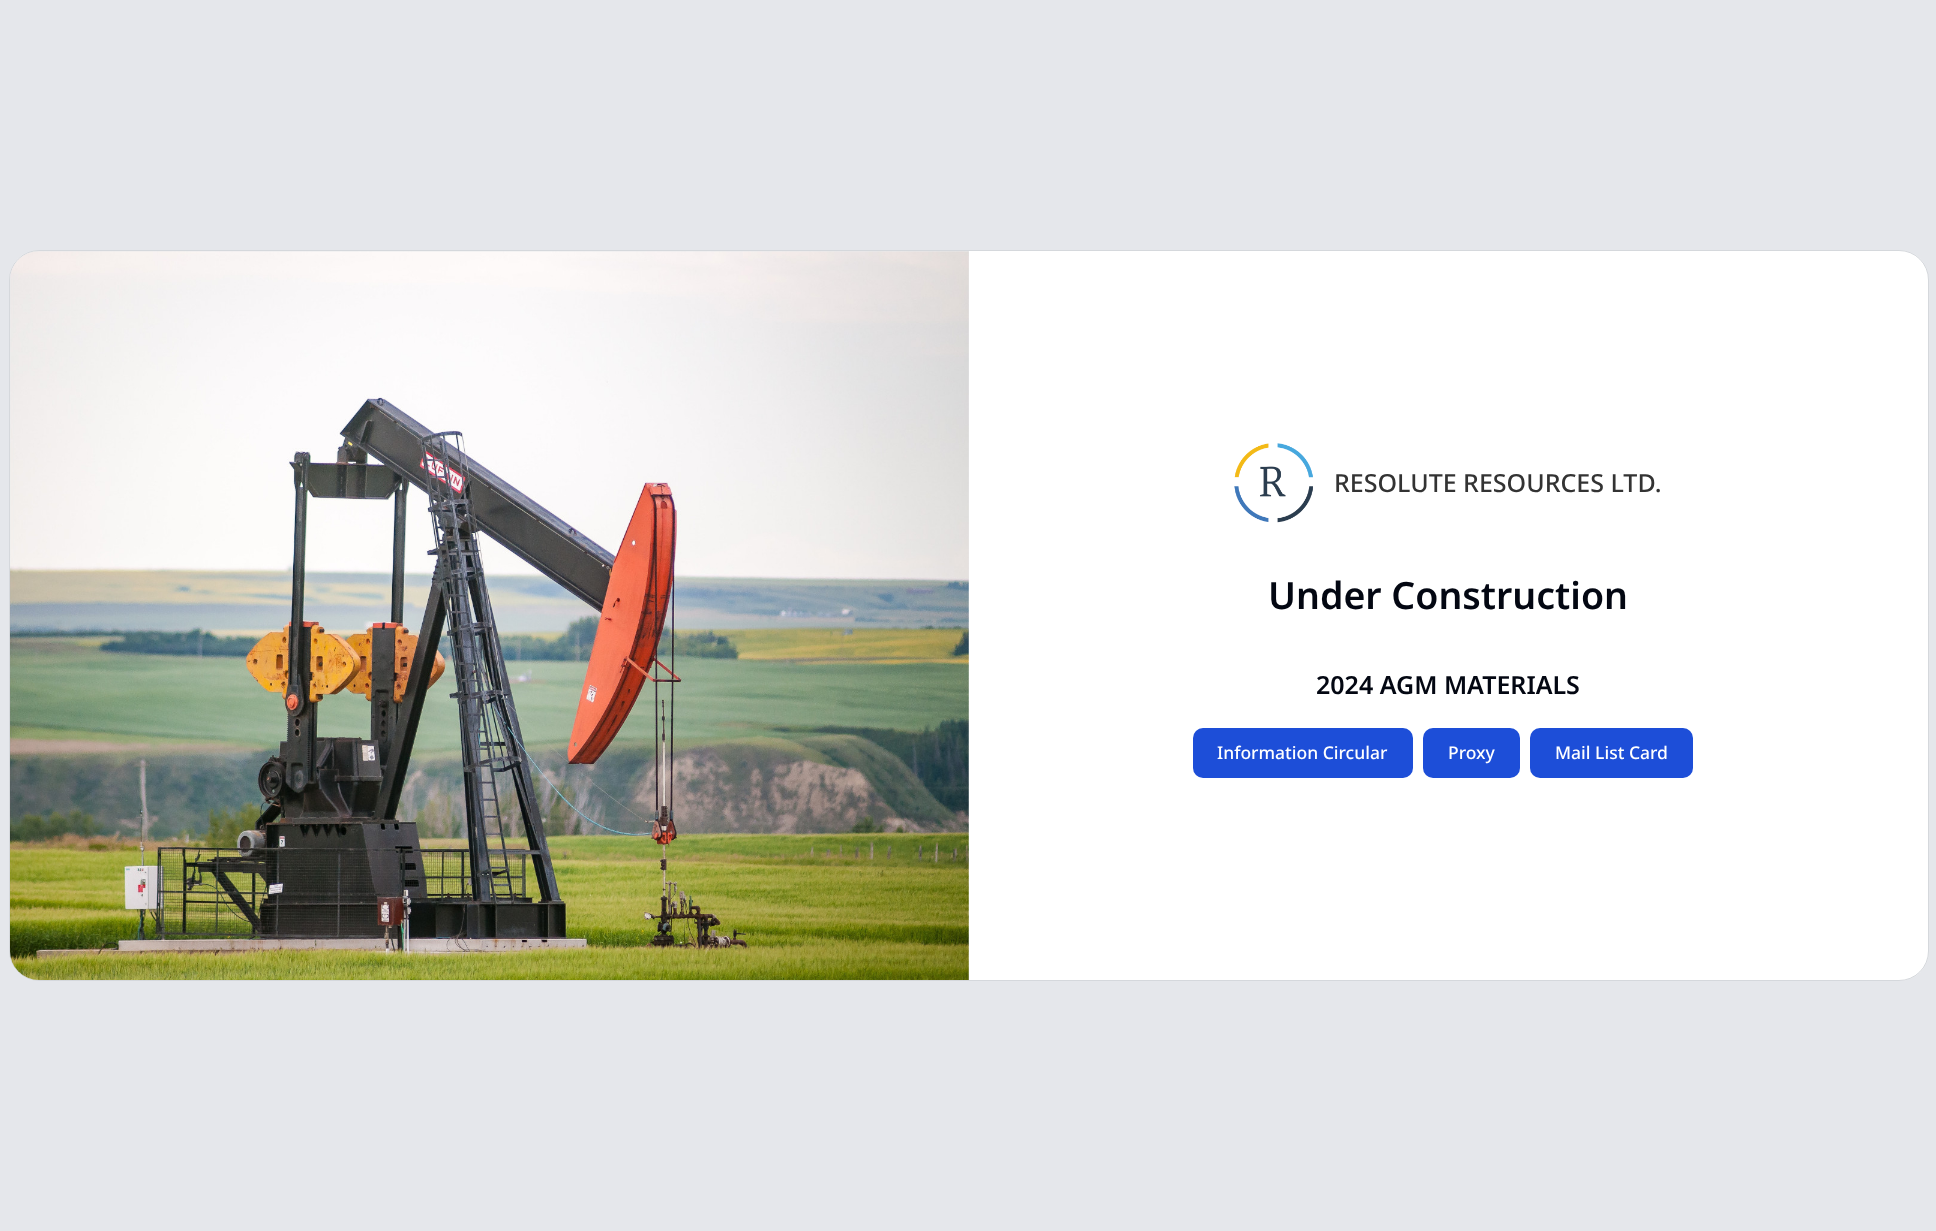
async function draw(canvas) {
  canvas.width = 1936;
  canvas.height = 1231;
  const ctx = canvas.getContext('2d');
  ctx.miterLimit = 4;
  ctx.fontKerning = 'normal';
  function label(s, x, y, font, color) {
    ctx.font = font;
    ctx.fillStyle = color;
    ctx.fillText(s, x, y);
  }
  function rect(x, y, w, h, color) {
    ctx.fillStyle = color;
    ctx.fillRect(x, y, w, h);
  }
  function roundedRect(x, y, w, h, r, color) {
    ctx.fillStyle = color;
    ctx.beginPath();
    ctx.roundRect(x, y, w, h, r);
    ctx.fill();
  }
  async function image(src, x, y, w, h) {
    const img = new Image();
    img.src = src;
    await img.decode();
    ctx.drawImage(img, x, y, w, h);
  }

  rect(0, 0, 1936, 1231, '#e5e7eb');
  roundedRect(9, 250, 1920, 731, 30, '#fff');
  ctx.beginPath();
  ctx.roundRect(9.5, 250.5, 1919, 730, 29.5);
  ctx.strokeStyle = '#2c3d4e33';
  ctx.stroke();
  ctx.fillStyle = '#2c3d4e1a';
  ctx.beginPath();
  ctx.roundRect(10, 251, 959, 729, [29, 0, 0, 29]);
  ctx.fill();
  await image('assets/img1.png', 10, 251, 959, 729);
  await image('assets/img2.png', 1234, 443, 79, 80);
  label('RESOLUTE RESOURCES LTD.', 1334, 492, '500 25px Noto Sans', '#333');
  label('Under Construction', 1268, 609, '600 37.5px Noto Sans', '#030712');
  label('2024 AGM MATERIALS', 1316, 694, '600 25px Noto Sans', '#030712');
  roundedRect(1193, 728, 220, 50, 10, '#1d4ed8');
  label('Information Circular', 1217, 759, '500 17.5px Noto Sans', '#fff');
  roundedRect(1423, 728, 97, 50, 10, '#1d4ed8');
  label('Proxy', 1448, 759, '500 17.5px Noto Sans', '#fff');
  roundedRect(1530, 728, 163, 50, 10, '#1d4ed8');
  label('Mail List Card', 1555, 759, '500 17.5px Noto Sans', '#fff');
}

draw(document.querySelector('canvas'));
